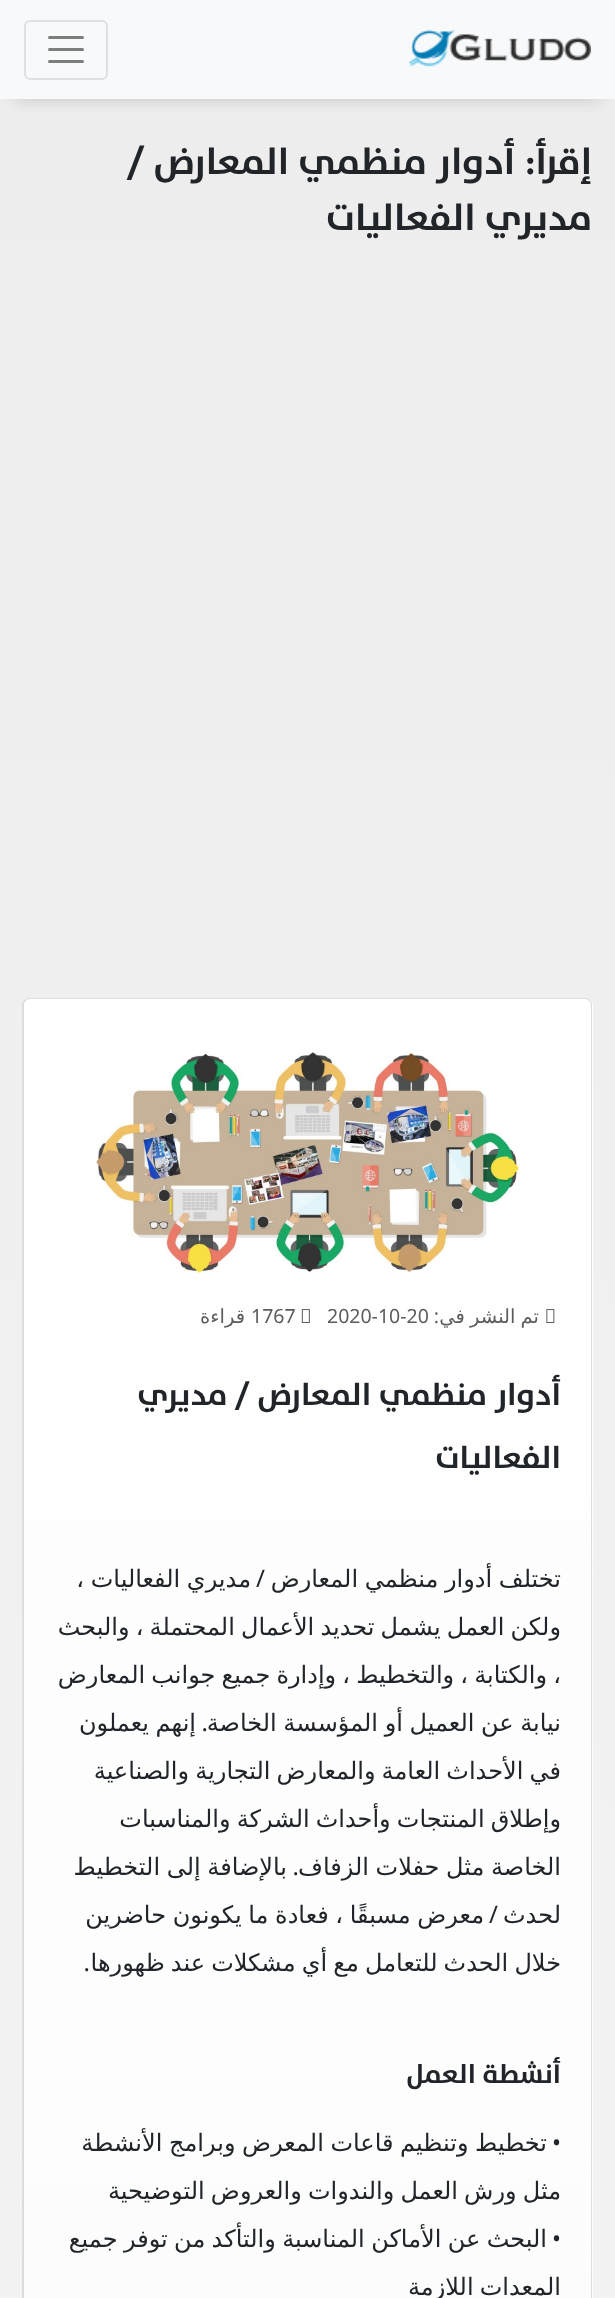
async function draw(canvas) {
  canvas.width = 615;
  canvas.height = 2298;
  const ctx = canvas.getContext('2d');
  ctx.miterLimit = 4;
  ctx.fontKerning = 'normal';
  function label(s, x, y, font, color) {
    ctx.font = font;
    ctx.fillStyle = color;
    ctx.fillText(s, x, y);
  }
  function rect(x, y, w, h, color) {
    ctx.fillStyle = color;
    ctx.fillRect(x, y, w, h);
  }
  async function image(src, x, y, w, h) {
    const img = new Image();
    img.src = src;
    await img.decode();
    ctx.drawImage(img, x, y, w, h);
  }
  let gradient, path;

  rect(0, 0, 615, 2298, '#fff');
  gradient = ctx.createLinearGradient(308, 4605, 308, 90);
  gradient.addColorStop(0, '#f8f9fa');
  gradient.addColorStop(1, '#ededed');
  ctx.fillStyle = gradient;
  ctx.fillRect(0, 99, 615, 2199);
  ctx.fillStyle = '#21232633';
  ctx.filter = 'blur(7.5px)';
  ctx.beginPath();
  ctx.rect(15, 30, 585, 69);
  ctx.fill();
  ctx.filter = 'none';
  rect(0, 0, 615, 99, '#f8f9fa');
  await image('assets/img1.png', 409, 29, 182, 38);
  ctx.beginPath();
  ctx.roundRect(25, 21, 82, 58, 5);
  ctx.strokeStyle = '#dfe0e1';
  ctx.lineWidth = 2;
  ctx.stroke();
  path = new Path2D('M49.5 37.5H82.5M49.5 49.5H82.5M49.5 61.5H82.5');
  ctx.strokeStyle = '#7c7d7d';
  ctx.lineWidth = 3;
  ctx.lineCap = 'round';
  ctx.stroke(path);
  ctx.direction = 'rtl';
  label('إقرأ: أدوار منظمي المعارض /', 592, 174, 'bold 37.5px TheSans', '#212529');
  label('مديري الفعاليات', 592, 230, 'bold 37.5px TheSans', '#212529');
  ctx.save();
  path = new Path2D('M31 998H585C589.5 998 593 1001.5 593 1006V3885H23V1006C23 1001.5 26.5 998 31 998Z');
  ctx.clip(path);
  gradient = ctx.createLinearGradient(308, 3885, 308, 999);
  gradient.addColorStop(0, '#f8f9fa');
  gradient.addColorStop(1, '#fff');
  ctx.fillStyle = gradient;
  ctx.fillRect(24, 999, 569, 1299);
  ctx.restore();
  ctx.fillStyle = '#ddd';
  path = new Path2D('M30 998H585C589 998 592 1001 592 1005V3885H22V1005C22 1001 26 998 30 998ZM30 999H585C588 999 591 1002 591 1005V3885H24V1005C24 1002 27 999 30 999Z');
  ctx.fill(path, 'evenodd');
  await image('assets/img2.png', 96, 1052, 425, 222);
  await image('assets/img3.png', 546, 1309, 9, 14);
  ctx.wordSpacing = '-1px';
  label('تم النشر في', 539, 1323, '19.5px DejaVu Sans', '#5e5c5c');
  ctx.wordSpacing = '0px';
  label(':', 439, 1323, '19.5px Noto Sans', '#5e5c5c');
  ctx.direction = 'ltr';
  label('2020-10-20', 327, 1323, '19.5px Noto Sans', '#5e5c5c');
  await image('assets/img4.png', 301, 1309, 9, 14);
  label('1767', 251, 1323, '19.5px Noto Sans', '#5e5c5c');
  ctx.direction = 'rtl';
  label('قراءة', 245, 1323, '19.5px DejaVu Sans', '#5e5c5c');
  label('أدوار منظمي المعارض / مديري', 561, 1405, 'bold 31.5px TheSans', '#212529');
  label('الفعاليات', 561, 1468, 'bold 31.5px TheSans', '#212529');
  ctx.wordSpacing = '-1px';
  label('تختلف أدوار منظمي المعارض', 561, 1587, '24px DejaVu Sans', '#212529');
  ctx.wordSpacing = '0px';
  label('/', 265, 1587, '24px Noto Sans', '#212529');
  ctx.wordSpacing = '-1px';
  label('مديري الفعاليات ،', 251, 1587, '24px DejaVu Sans', '#212529');
  ctx.wordSpacing = '-1.5px';
  label('ولكن العمل يشمل تحديد الأعمال المحتملة ، والبحث', 561, 1635, '24px DejaVu Sans', '#212529');
  label('، والكتابة ، والتخطيط ، وإدارة جميع جوانب المعارض', 561, 1683, '24px DejaVu Sans', '#212529');
  ctx.wordSpacing = '-1px';
  label('نيابة عن العميل أو المؤسسة الخاصة', 561, 1731, '24px DejaVu Sans', '#212529');
  ctx.wordSpacing = '0px';
  label('.', 208, 1731, '24px Noto Sans', '#212529');
  ctx.wordSpacing = '-1px';
  label('إنهم يعملون', 196, 1731, '24px DejaVu Sans', '#212529');
  ctx.wordSpacing = '-1.5px';
  label('في الأحداث العامة والمعارض التجارية والصناعية', 561, 1779, '24px DejaVu Sans', '#212529');
  label('وإطلاق المنتجات وأحداث الشركة والمناسبات', 561, 1827, '24px DejaVu Sans', '#212529');
  ctx.wordSpacing = '-1px';
  label('الخاصة مثل حفلات الزفاف', 561, 1875, '24px DejaVu Sans', '#212529');
  ctx.wordSpacing = '0px';
  label('.', 299, 1875, '24px Noto Sans', '#212529');
  ctx.wordSpacing = '-1px';
  label('بالإضافة إلى التخطيط', 287, 1875, '24px DejaVu Sans', '#212529');
  ctx.wordSpacing = '0px';
  label('لحدث', 561, 1923, '24px DejaVu Sans', '#212529');
  label('/', 498, 1923, '24px Noto Sans', '#212529');
  ctx.wordSpacing = '-1px';
  label('معرض مسبقًا ، فعادة ما يكونون حاضرين', 484, 1923, '24px DejaVu Sans', '#212529');
  ctx.wordSpacing = '-1.5px';
  label('خلال الحدث للتعامل مع أي مشكلات عند ظهورها', 561, 1971, '24px DejaVu Sans', '#212529');
  ctx.wordSpacing = '0px';
  label('.', 90, 1971, '24px Noto Sans', '#212529');
  label('أنشطة العمل', 561, 2083, 'bold 27px TheSans', '#212529');
  label('•', 561, 2151, '24px Noto Sans', '#212529');
  ctx.wordSpacing = '-1px';
  label('تخطيط وتنظيم قاعات المعرض وبرامج الأنشطة', 547, 2151, '24px DejaVu Sans', '#212529');
  ctx.wordSpacing = '-1.5px';
  label('مثل ورش العمل والندوات والعروض التوضيحية', 561, 2199, '24px DejaVu Sans', '#212529');
  ctx.wordSpacing = '-1.25px';
  label('البحث عن الأماكن المناسبة والتأكد من توفر جميع', 547, 2247, '24px DejaVu Sans', '#212529');
  ctx.wordSpacing = '0px';
  label('•', 561, 2247, '24px Noto Sans', '#212529');
  ctx.wordSpacing = '-1.5px';
  label('المعدات اللازمة', 561, 2295, '24px DejaVu Sans', '#212529');
}

draw(document.querySelector('canvas'));
